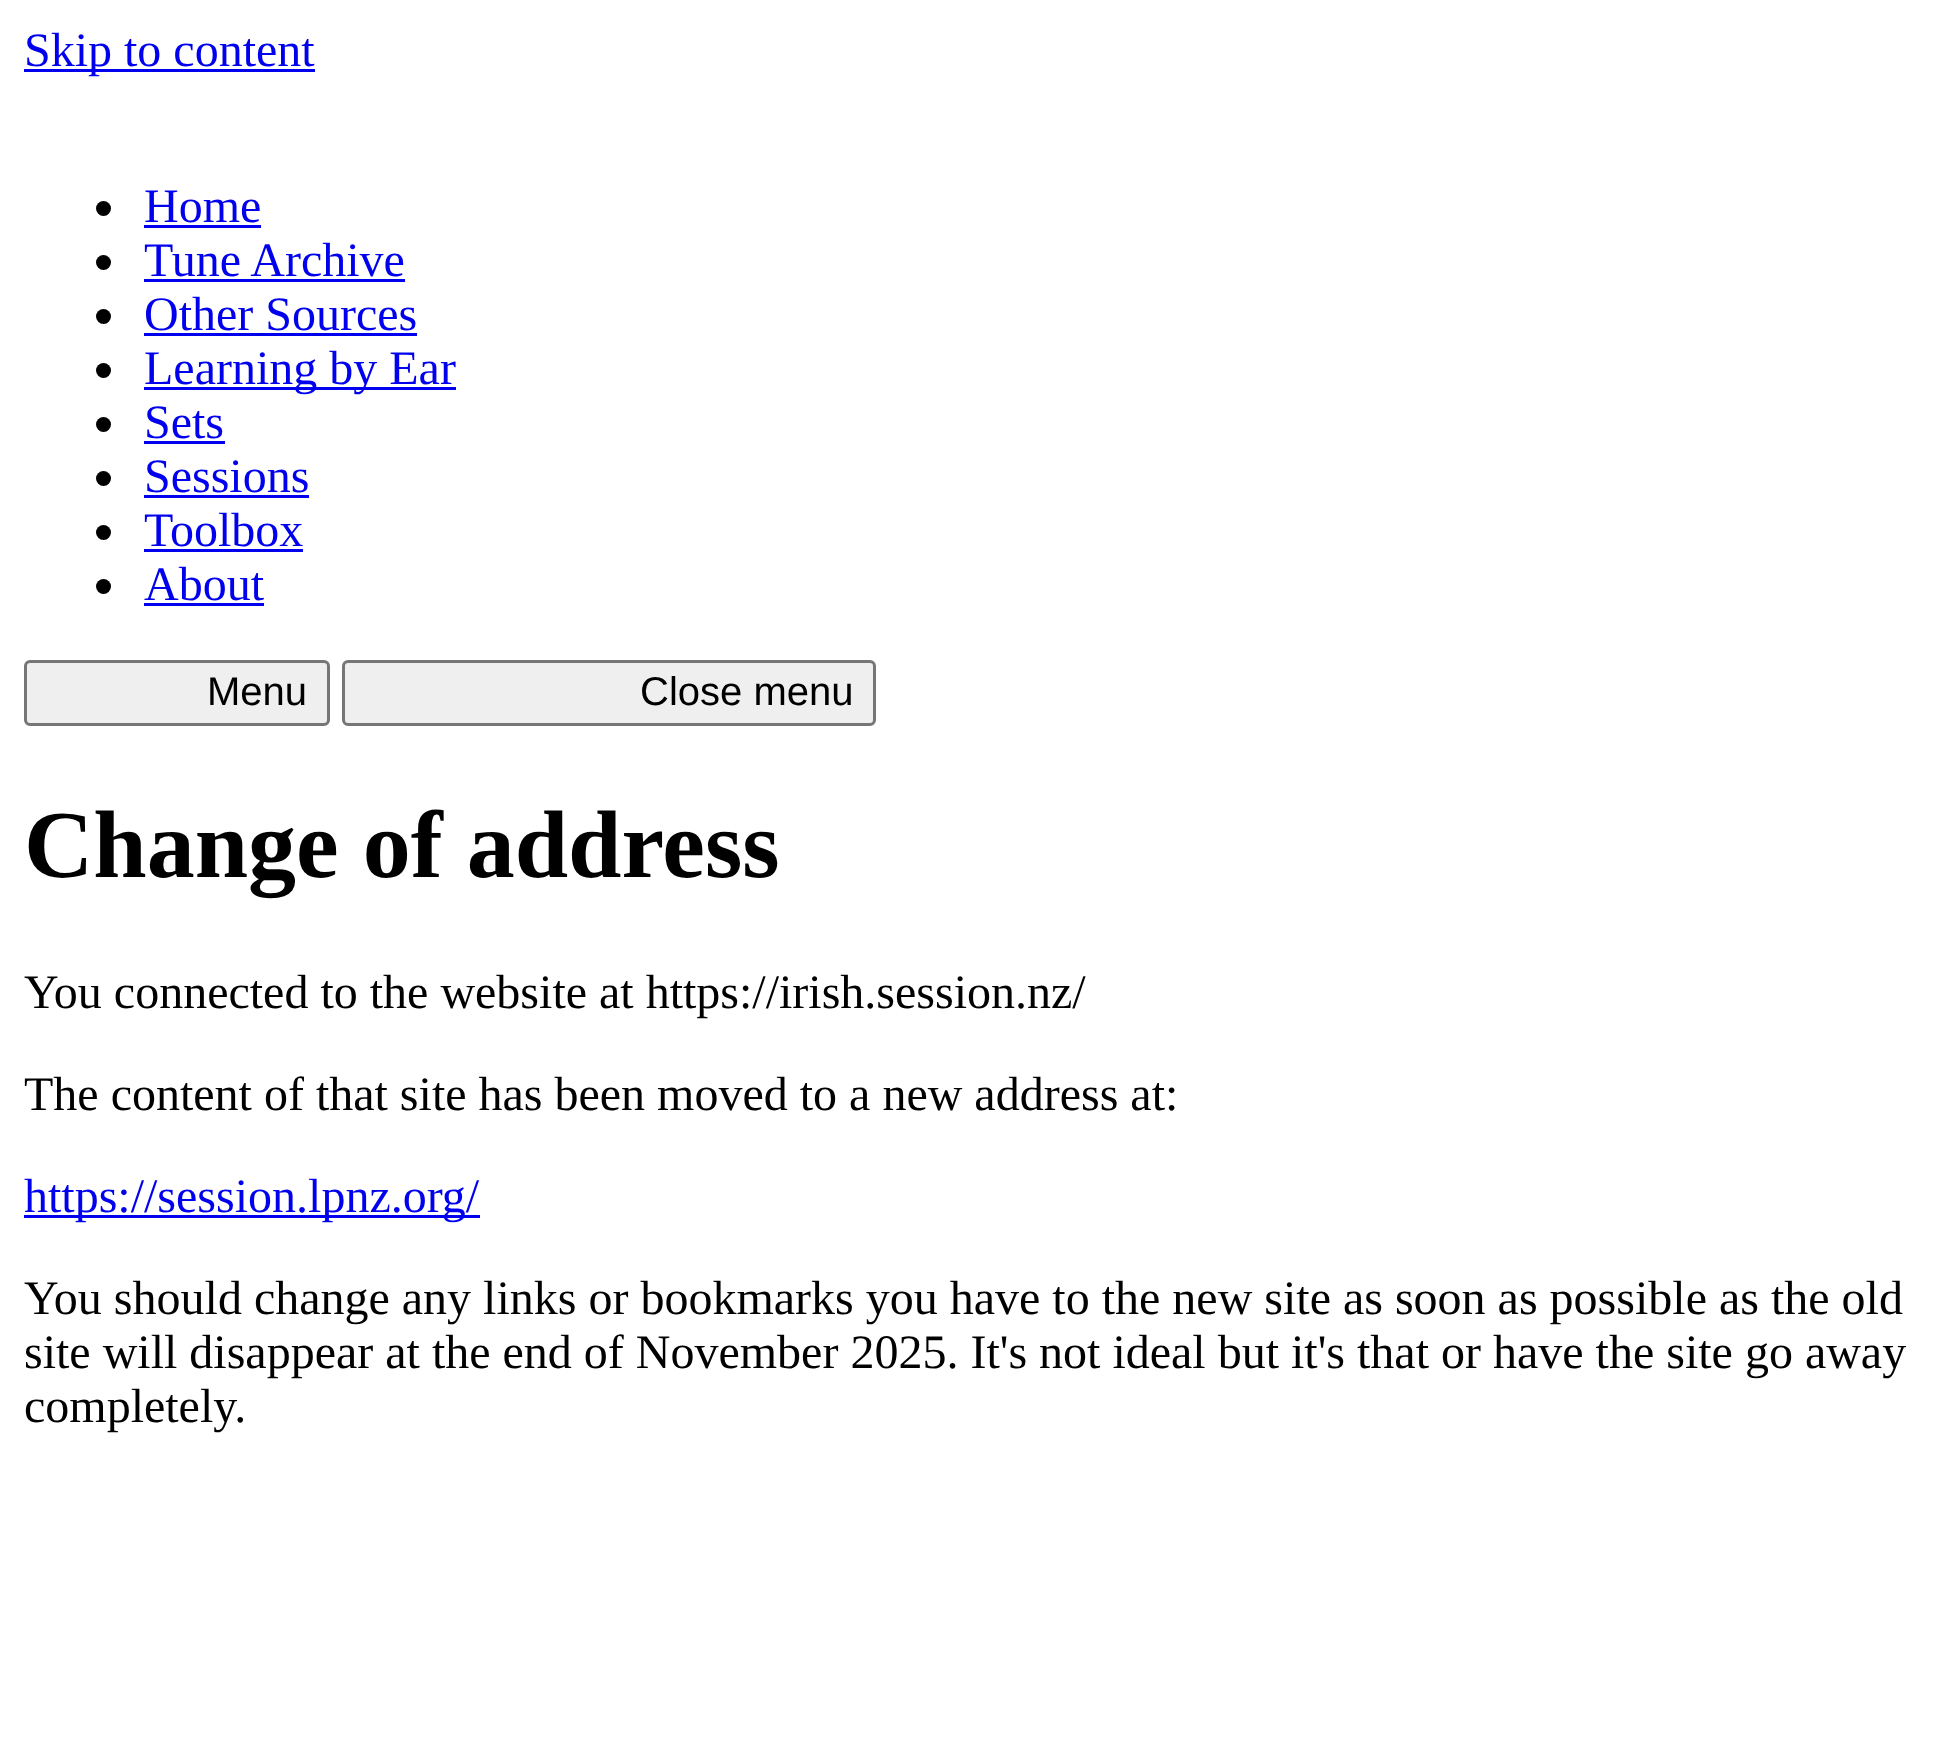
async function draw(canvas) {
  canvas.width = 1945;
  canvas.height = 1738;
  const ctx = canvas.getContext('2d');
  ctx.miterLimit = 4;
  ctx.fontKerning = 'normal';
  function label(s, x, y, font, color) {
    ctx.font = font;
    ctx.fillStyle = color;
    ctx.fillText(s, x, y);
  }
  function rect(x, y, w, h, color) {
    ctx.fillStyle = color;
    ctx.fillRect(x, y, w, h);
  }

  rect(0, 0, 1945, 1738, '#fff');
  rect(24, 69, 291, 3, '#00e');
  label('Skip to content', 24, 66, '48px Liberation Serif', '#00e');
  ctx.fillStyle = '#000';
  ctx.beginPath();
  ctx.arc(103.5, 208.5, 7.5, 0, 2 * Math.PI);
  ctx.fill();
  label('Home', 144, 222, '48px Liberation Serif', '#00e');
  rect(144, 225, 117, 3, '#00e');
  ctx.fillStyle = '#000';
  ctx.beginPath();
  ctx.arc(103.5, 262.5, 7.5, 0, 2 * Math.PI);
  ctx.fill();
  label('Tune Archive', 144, 276, '48px Liberation Serif', '#00e');
  rect(144, 279, 261, 3, '#00e');
  ctx.fillStyle = '#000';
  ctx.beginPath();
  ctx.arc(103.5, 316.5, 7.5, 0, 2 * Math.PI);
  ctx.fill();
  label('Other Sources', 144, 330, '48px Liberation Serif', '#00e');
  rect(144, 333, 273, 3, '#00e');
  ctx.fillStyle = '#000';
  ctx.beginPath();
  ctx.arc(103.5, 370.5, 7.5, 0, 2 * Math.PI);
  ctx.fill();
  rect(144, 387, 312, 3, '#00e');
  label('Learning by Ear', 144, 384, '48px Liberation Serif', '#00e');
  ctx.fillStyle = '#000';
  ctx.beginPath();
  ctx.arc(103.5, 424.5, 7.5, 0, 2 * Math.PI);
  ctx.fill();
  label('Sets', 144, 438, '48px Liberation Serif', '#00e');
  rect(144, 441, 81, 3, '#00e');
  ctx.fillStyle = '#000';
  ctx.beginPath();
  ctx.arc(103.5, 478.5, 7.5, 0, 2 * Math.PI);
  ctx.fill();
  label('Sessions', 144, 492, '48px Liberation Serif', '#00e');
  rect(144, 495, 165, 3, '#00e');
  ctx.fillStyle = '#000';
  ctx.beginPath();
  ctx.arc(103.5, 532.5, 7.5, 0, 2 * Math.PI);
  ctx.fill();
  label('Toolbox', 144, 546, '48px Liberation Serif', '#00e');
  rect(144, 549, 159, 3, '#00e');
  ctx.fillStyle = '#000';
  ctx.beginPath();
  ctx.arc(103.5, 586.5, 7.5, 0, 2 * Math.PI);
  ctx.fill();
  label('About', 144, 600, '48px Liberation Serif', '#00e');
  rect(144, 603, 120, 3, '#00e');
  ctx.fillStyle = '#efefef';
  ctx.beginPath();
  ctx.roundRect(25.5, 661.5, 303, 63, 4.5);
  ctx.fill();
  ctx.strokeStyle = '#767676';
  ctx.lineWidth = 3;
  ctx.stroke();
  label('Menu', 207, 705, '40px Liberation Sans', '#000');
  ctx.fillStyle = '#efefef';
  ctx.beginPath();
  ctx.roundRect(343.5, 661.5, 531, 63, 4.5);
  ctx.fill();
  ctx.stroke();
  label('Close menu', 640, 705, '40px Liberation Sans', '#000');
  label('Change of address', 24, 877, 'bold 96px Liberation Serif', '#000');
  label('You connected to the website at https://irish.session.nz/', 24, 1008, '48px Liberation Serif', '#000');
  label('The content of that site has been moved to a new address at:', 24, 1110, '48px Liberation Serif', '#000');
  rect(24, 1215, 456, 3, '#00e');
  label('https://session.lpnz.org/', 24, 1212, '48px Liberation Serif', '#00e');
  label('You should change any links or bookmarks you have to the new site as soon as possible as the old', 24, 1314, '48px Liberation Serif', '#000');
  label('site will disappear at the end of November 2025. It\'s not ideal but it\'s that or have the site go away', 24, 1368, '48px Liberation Serif', '#000');
  label('completely.', 24, 1422, '48px Liberation Serif', '#000');
}

draw(document.querySelector('canvas'));
